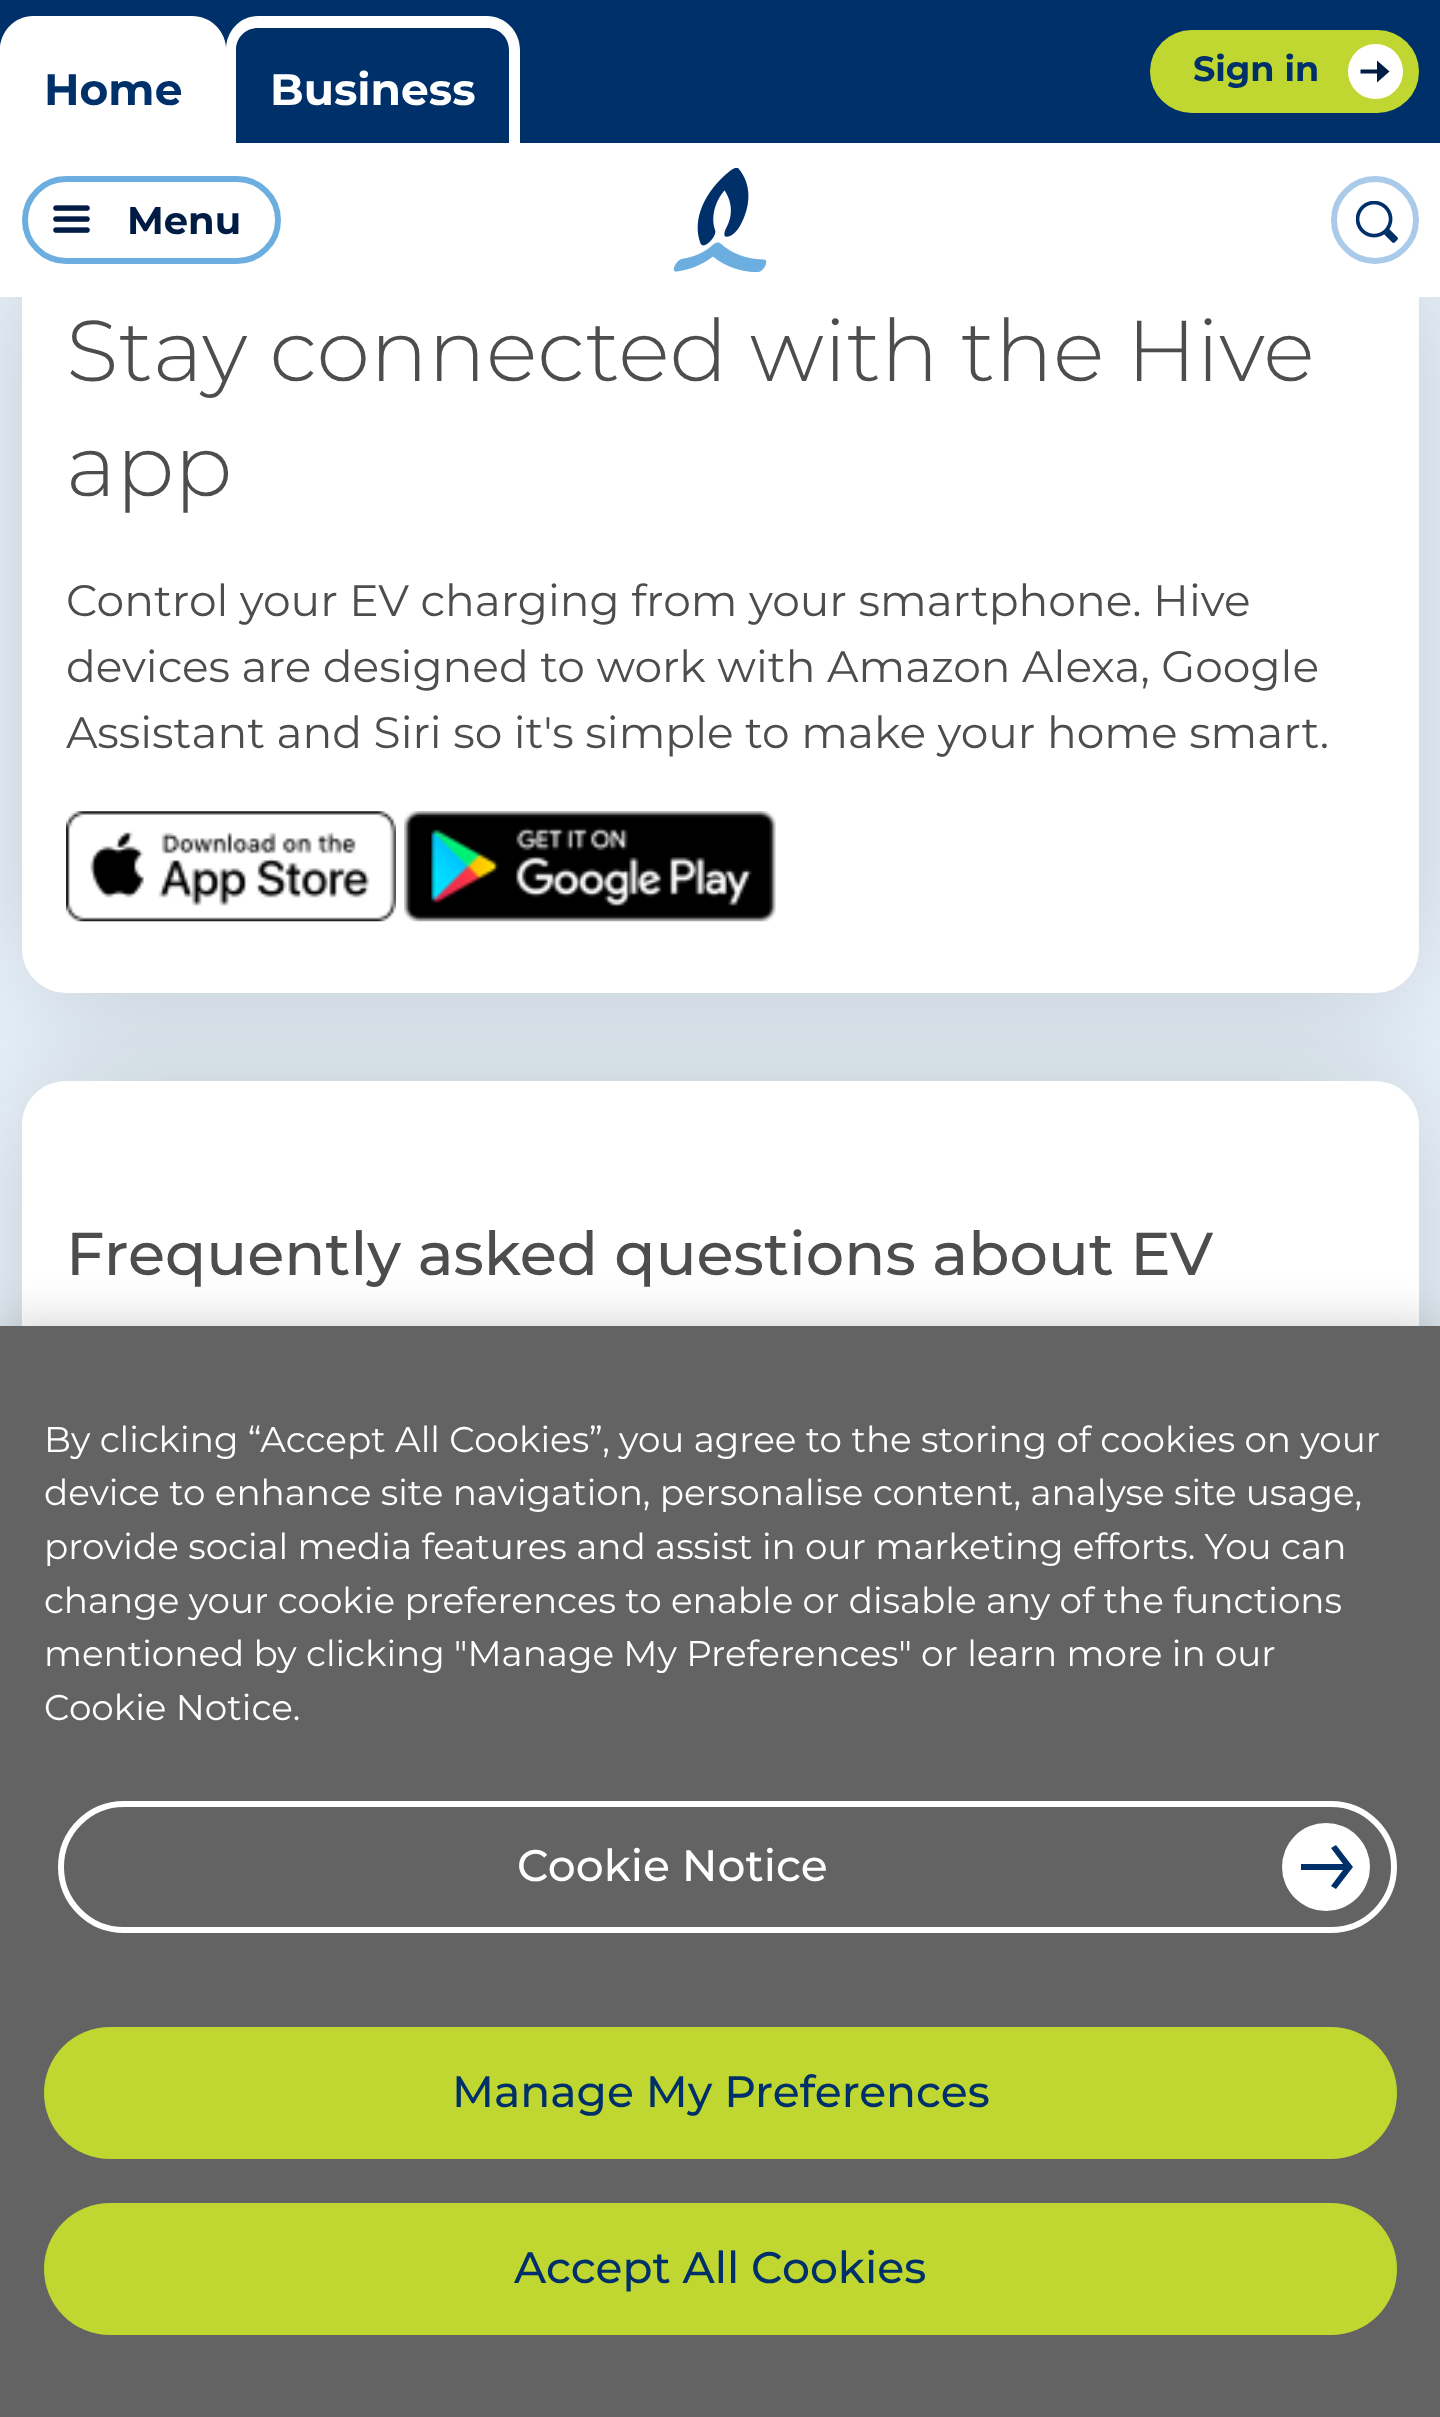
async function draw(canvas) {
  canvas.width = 1440;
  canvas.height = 2417;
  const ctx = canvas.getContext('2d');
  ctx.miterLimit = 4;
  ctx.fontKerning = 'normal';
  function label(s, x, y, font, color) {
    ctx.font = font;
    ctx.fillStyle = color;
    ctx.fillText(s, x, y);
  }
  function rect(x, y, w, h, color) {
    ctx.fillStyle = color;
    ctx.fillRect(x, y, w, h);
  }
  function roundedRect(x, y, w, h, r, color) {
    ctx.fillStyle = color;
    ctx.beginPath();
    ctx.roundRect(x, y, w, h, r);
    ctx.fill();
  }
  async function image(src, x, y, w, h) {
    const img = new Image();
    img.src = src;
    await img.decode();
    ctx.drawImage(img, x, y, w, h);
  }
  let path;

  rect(0, 0, 1440, 2417, '#e9f3fb');
  ctx.fillStyle = '#00000029';
  ctx.filter = 'blur(66px)';
  ctx.beginPath();
  ctx.roundRect(22, 253, 1397, 740, 44);
  ctx.fill();
  ctx.filter = 'none';
  rect(0, 0, 1440, 143, '#00306a');
  ctx.fillStyle = '#fff';
  ctx.beginPath();
  ctx.roundRect(0, 17, 226, 126, [33, 33, 0, 0]);
  ctx.fill();
  path = new Path2D('M33 16H192C211 16 226 31 226 50V143H0V50C0 31 15 16 33 16ZM33 28H192C205 28 214 37 214 50V143H11V50C11 37 21 28 33 28Z');
  ctx.fill(path, 'evenodd');
  label('Home', 44, 105, '100 44px "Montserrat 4"', '#00306a');
  ctx.fillStyle = '#fff';
  path = new Path2D('M258 16H487C505 16 520 31 520 50V143H226V50C226 31 240 16 258 16ZM258 28H487C499 28 509 37 509 50V143H236V50C236 37 246 28 258 28Z');
  ctx.fill(path, 'evenodd');
  label('Business', 270, 105, '100 44px "Montserrat 4"', '#fff');
  roundedRect(1150, 30, 269, 83, 41.5, '#bfd730');
  label('Sign in', 1193, 81, '100 35px "Montserrat 4"', '#00306a');
  ctx.fillStyle = '#fff';
  ctx.beginPath();
  ctx.arc(1375.5, 71.5, 24.5, 0, 2 * Math.PI);
  ctx.fill();
  ctx.strokeStyle = '#fff';
  ctx.lineWidth = 6;
  ctx.stroke();
  ctx.fillStyle = '#001c45';
  path = new Path2D('M1360.5 73.5H1377V82.5L1389.5 71.5L1377 60.5V69.5H1360.5Z');
  ctx.fill(path, 'evenodd');
  ctx.fillStyle = '#00000029';
  ctx.filter = 'blur(66px)';
  ctx.beginPath();
  ctx.roundRect(22, 1081, 1397, 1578, 44);
  ctx.fill();
  ctx.filter = 'none';
  roundedRect(22, 253, 1397, 740, 44, '#fff');
  rect(0, 143, 1440, 154, '#fff');
  ctx.beginPath();
  ctx.roundRect(25, 179, 253, 82, 41);
  ctx.strokeStyle = '#6caee0';
  ctx.stroke();
  await image('assets/img1.png', 53, 205, 37, 28);
  label('Menu', 127, 234, '100 38.5px "Montserrat 4"', '#001c45');
  await image('assets/img2.png', 673, 168, 94, 104);
  ctx.beginPath();
  ctx.arc(1375, 220, 41, 0, 2 * Math.PI);
  ctx.strokeStyle = '#aacae9';
  ctx.stroke();
  await image('assets/img3.png', 1356, 201, 42, 42);
  label('Stay connected with the Hive', 66, 381, '100 86.1px Montserrat', '#4d4d4f');
  label('app', 66, 496, '100 86.1px Montserrat', '#4d4d4f');
  label('Control your EV charging from your smartphone. Hive', 66, 616, '100 44px "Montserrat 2"', '#4d4d4f');
  label('devices are designed to work with Amazon Alexa, Google', 66, 682, '100 44px "Montserrat 2"', '#4d4d4f');
  label('Assistant and Siri so it\'s simple to make your home smart.', 66, 748, '100 44px "Montserrat 2"', '#4d4d4f');
  await image('assets/img4.png', 66, 811, 330, 111);
  await image('assets/img5.png', 404, 811, 372, 111);
  ctx.fillStyle = '#fff';
  path = new Path2D('M66 1081H1375C1399.5 1081 1419 1100.5 1419 1125V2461H22V1125C22 1100.5 41.5 1081 66 1081Z');
  ctx.fill(path);
  label('Frequently asked questions about EV', 66, 1275, '100 60.5px "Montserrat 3"', '#4d4d4f');
  ctx.fillStyle = '#00000033';
  ctx.filter = 'blur(25px)';
  ctx.beginPath();
  ctx.rect(0, 1326, 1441, 1091);
  ctx.fill();
  ctx.filter = 'none';
  rect(0, 1326, 1440, 1091, '#636363');
  label('By clicking “Accept All Cookies”, you agree to the storing of cookies on your', 44, 1452, '100 35.75px "Montserrat 2"', '#fff');
  label('device to enhance site navigation, personalise content, analyse site usage,', 44, 1505, '100 35.75px "Montserrat 2"', '#fff');
  label('provide social media features and assist in our marketing efforts. You can', 44, 1559, '100 35.75px "Montserrat 2"', '#fff');
  label('change your cookie preferences to enable or disable any of the functions', 44, 1613, '100 35.75px "Montserrat 2"', '#fff');
  label('mentioned by clicking "Manage My Preferences" or learn more in our', 44, 1666, '100 35.75px "Montserrat 2"', '#fff');
  label('Cookie Notice.', 44, 1720, '100 35.75px "Montserrat 2"', '#fff');
  ctx.beginPath();
  ctx.roundRect(61, 1804, 1333, 126, 63);
  ctx.strokeStyle = '#fff';
  ctx.stroke();
  ctx.beginPath();
  ctx.arc(1326, 1867, 44, 0, 2 * Math.PI);
  ctx.fill();
  label('Cookie Notice', 517, 1881, '100 44px "Montserrat 3"', '#fff');
  ctx.fillStyle = '#00306a';
  path = new Path2D('M1301 1864H1343L1331 1848L1336 1845L1353 1867L1336 1889L1331 1886L1343 1870H1301Z');
  ctx.fill(path, 'evenodd');
  roundedRect(44, 2027, 1353, 132, 66, '#bfd730');
  label('Manage My Preferences', 452, 2107, '100 44px "Montserrat 3"', '#00306a');
  roundedRect(44, 2203, 1353, 132, 66, '#bfd730');
  label('Accept All Cookies', 514, 2283, '100 44px "Montserrat 3"', '#00306a');
}

draw(document.querySelector('canvas'));
